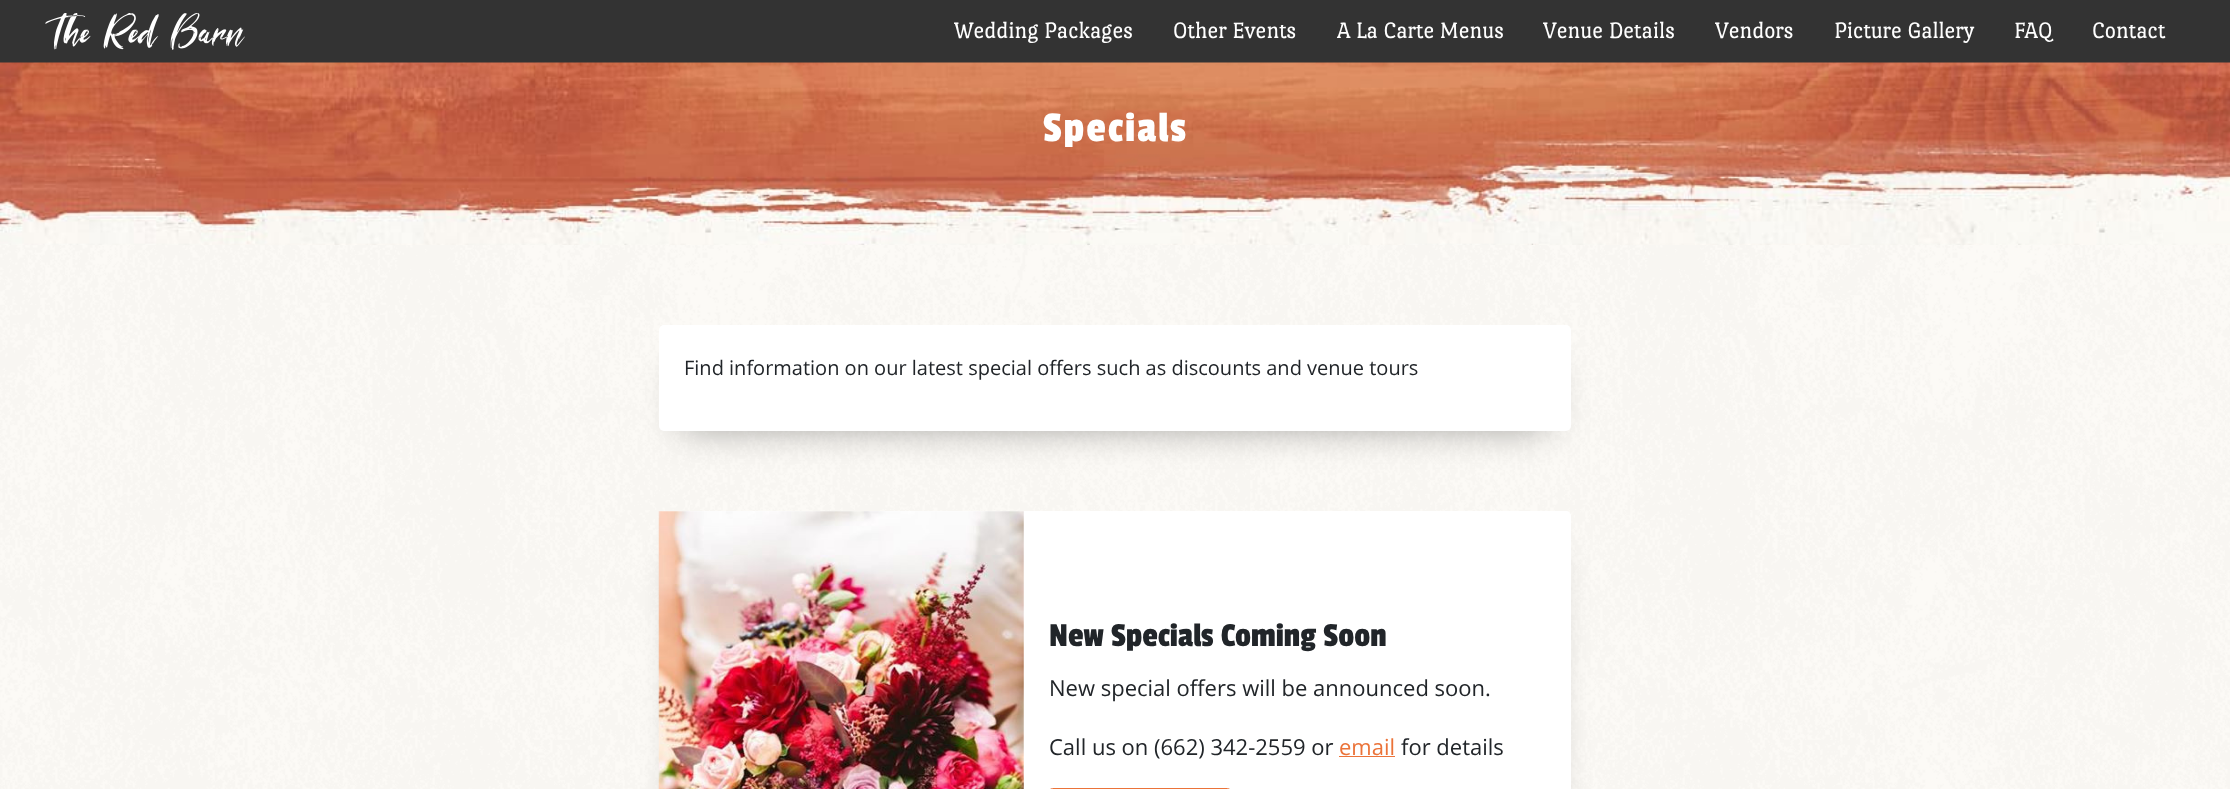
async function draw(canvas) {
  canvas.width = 2230;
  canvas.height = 789;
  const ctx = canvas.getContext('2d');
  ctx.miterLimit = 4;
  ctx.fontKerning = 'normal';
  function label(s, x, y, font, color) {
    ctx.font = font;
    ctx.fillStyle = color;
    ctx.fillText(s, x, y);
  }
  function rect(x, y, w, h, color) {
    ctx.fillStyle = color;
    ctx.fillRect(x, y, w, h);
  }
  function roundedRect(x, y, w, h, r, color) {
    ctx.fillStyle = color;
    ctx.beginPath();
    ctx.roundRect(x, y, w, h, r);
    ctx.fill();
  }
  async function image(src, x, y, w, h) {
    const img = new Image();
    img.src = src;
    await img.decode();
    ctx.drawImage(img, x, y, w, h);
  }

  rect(0, 0, 2230, 789, '#fff');
  await image('assets/img1.png', 0, 245, 2230, 544);
  rect(0, 0, 2230, 63, '#333');
  await image('assets/img2.png', 45, 13, 200, 37);
  label('Wedding Packages', 954, 38, '24px Port Lligat Slab', '#fff');
  label('Other Events', 1173, 38, '24px Port Lligat Slab', '#fff');
  label('A La Carte Menus', 1337, 38, '24px Port Lligat Slab', '#fff');
  label('Venue Details', 1543, 38, '24px Port Lligat Slab', '#fff');
  label('Vendors', 1715, 38, '24px Port Lligat Slab', '#fff');
  label('Picture Gallery', 1834, 38, '24px Port Lligat Slab', '#fff');
  label('FAQ', 2014, 38, '24px Port Lligat Slab', '#fff');
  label('Contact', 2092, 38, '24px Port Lligat Slab', '#fff');
  await image('assets/img3.png', 0, 62, 2230, 183);
  ctx.letterSpacing = '2px';
  label('Specials', 1043, 141, '44px Passion One', '#fff');
  ctx.fillStyle = '#00000066';
  ctx.filter = 'blur(19px)';
  ctx.beginPath();
  ctx.rect(683, 368, 865, 58);
  ctx.fill();
  ctx.filter = 'none';
  roundedRect(659, 325, 912, 106, 5, '#fff');
  ctx.letterSpacing = '0px';
  label('Find information on our latest special offers such as discounts and venue tours', 684, 375, '20px Open Sans', '#212529');
  ctx.fillStyle = '#00000066';
  ctx.filter = 'blur(19px)';
  ctx.beginPath();
  ctx.rect(683, 554, 865, 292);
  ctx.fill();
  ctx.filter = 'none';
  roundedRect(659, 511, 912, 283, 5, '#fff');
  await image('assets/img4.png', 658, 511, 366, 278);
  label('New Specials Coming Soon', 1049, 646, '35px Passion One', '#212529');
  label('New special offers will be announced soon.', 1049, 696, '22px Open Sans', '#212529');
  label('Call us on (662) 342-2559 or', 1049, 755, '22px Open Sans', '#212529');
  label('email', 1339, 755, '22px Open Sans', '#eb7339');
  rect(1339, 756, 56, 1, '#eb7339');
  label('for details', 1401, 755, '22px Open Sans', '#212529');
  ctx.beginPath();
  ctx.roundRect(1049.5, 788.5, 181, 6, 4.5);
  ctx.strokeStyle = '#eb7339';
  ctx.stroke();
}

draw(document.querySelector('canvas'));
